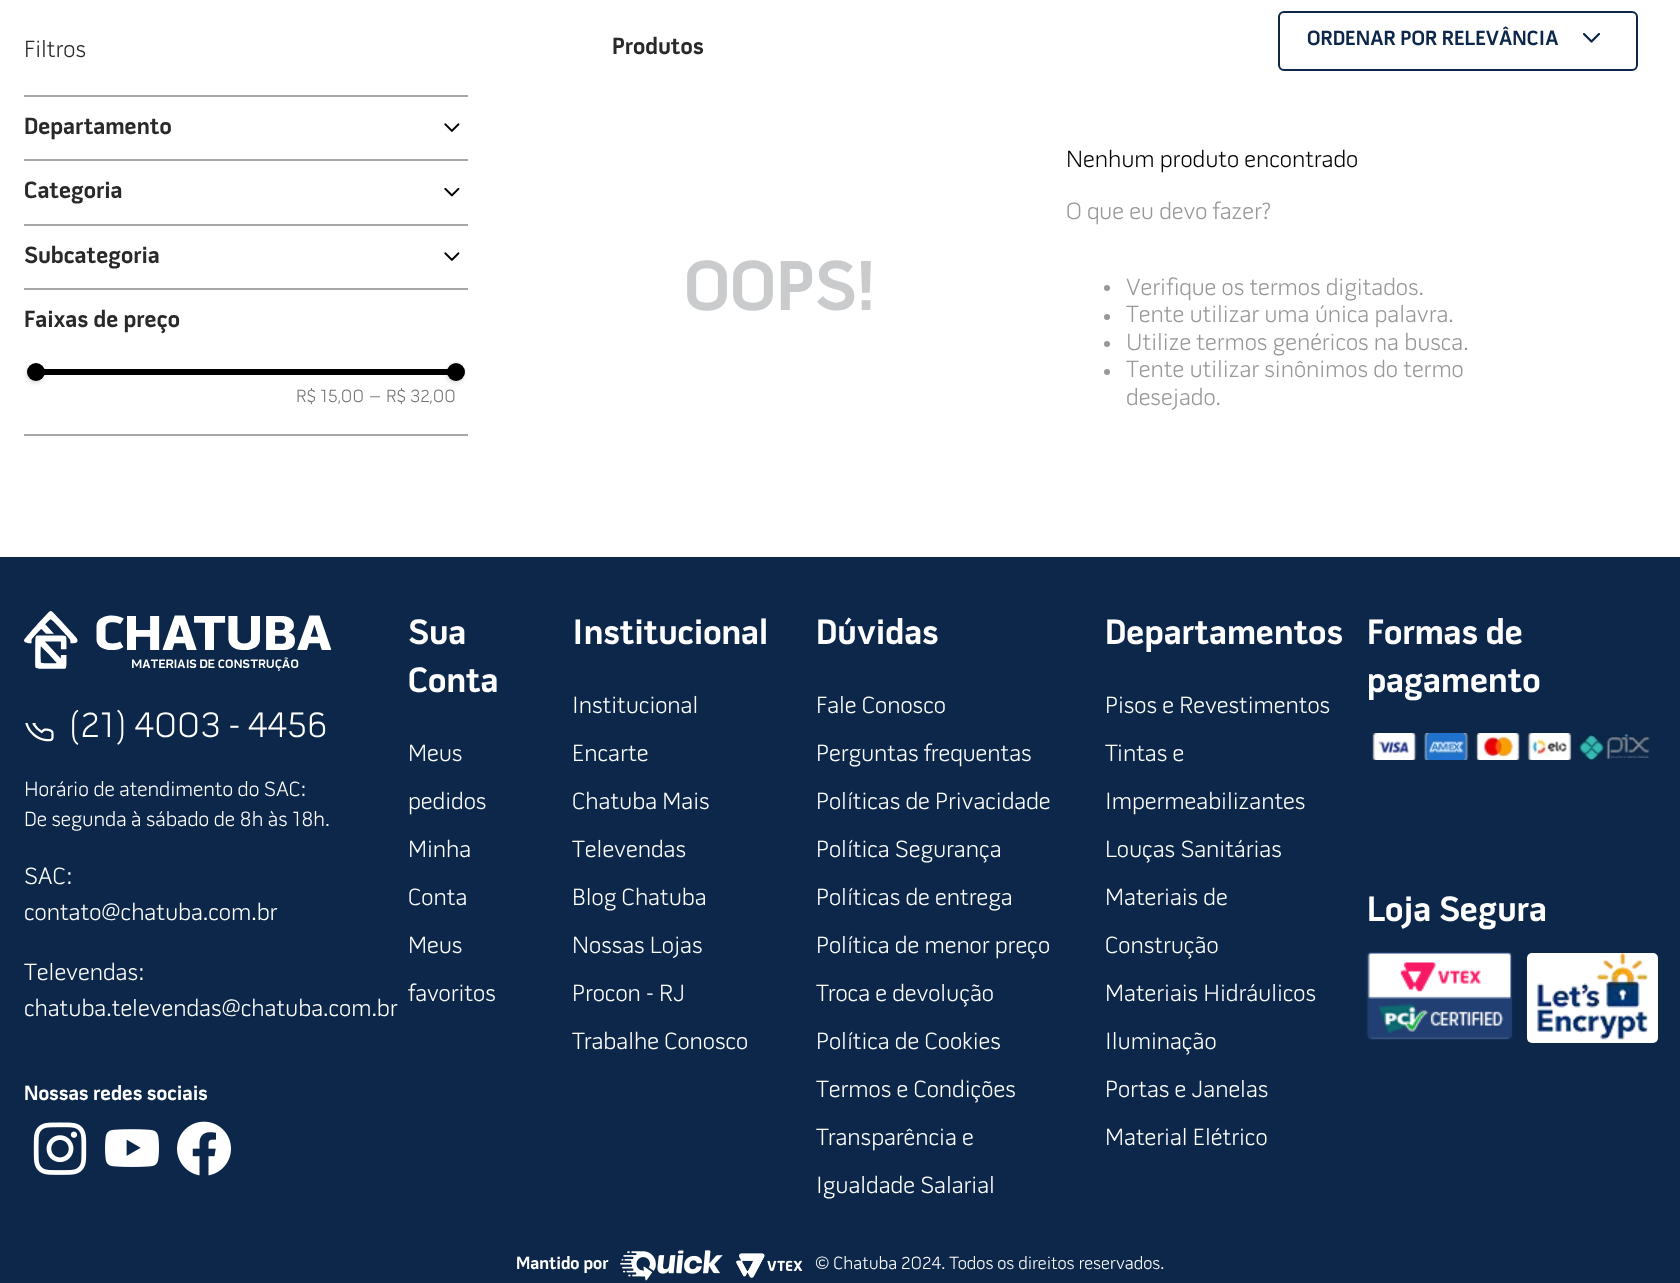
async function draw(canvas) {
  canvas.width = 1680;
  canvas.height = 1283;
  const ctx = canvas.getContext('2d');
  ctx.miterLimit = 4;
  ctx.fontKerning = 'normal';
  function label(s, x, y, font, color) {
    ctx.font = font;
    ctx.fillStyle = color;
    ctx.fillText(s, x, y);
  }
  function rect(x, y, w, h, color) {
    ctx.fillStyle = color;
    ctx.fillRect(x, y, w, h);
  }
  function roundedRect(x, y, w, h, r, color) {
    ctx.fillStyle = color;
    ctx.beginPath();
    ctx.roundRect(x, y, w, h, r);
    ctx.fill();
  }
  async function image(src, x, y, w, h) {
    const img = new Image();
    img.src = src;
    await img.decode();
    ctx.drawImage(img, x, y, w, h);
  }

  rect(0, 0, 1680, 1283, '#fff');
  rect(24, 95, 444, 2, '#a7a7a7');
  label('Filtros', 24, 57, '300 24px "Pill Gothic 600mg"', '#292929');
  rect(24, 159, 444, 2, '#a7a7a7');
  label('Departamento', 24, 134, 'bold 24px "Pill Gothic 600mg"', '#292929');
  await image('assets/img1.png', 444, 123, 16, 9);
  rect(24, 224, 444, 2, '#a7a7a7');
  label('Categoria', 24, 198, 'bold 24px "Pill Gothic 600mg"', '#292929');
  await image('assets/img2.png', 444, 188, 16, 9);
  rect(24, 288, 444, 2, '#a7a7a7');
  label('Subcategoria', 24, 263, 'bold 24px "Pill Gothic 600mg"', '#292929');
  await image('assets/img1.png', 444, 252, 16, 9);
  rect(24, 434, 444, 2, '#a7a7a7');
  label('Faixas de preço', 24, 327, 'bold 24px "Pill Gothic 600mg"', '#292929');
  rect(36, 369, 420, 6, '#000');
  ctx.fillStyle = '#00000026';
  ctx.filter = 'blur(2px)';
  ctx.beginPath();
  ctx.roundRect(26, 365, 18, 18, 9);
  ctx.fill();
  ctx.filter = 'none';
  ctx.fillStyle = '#000';
  ctx.beginPath();
  ctx.arc(36, 372, 9, 0, 2 * Math.PI);
  ctx.fill();
  ctx.fillStyle = '#00000026';
  ctx.filter = 'blur(2px)';
  ctx.beginPath();
  ctx.roundRect(446, 365, 18, 18, 9);
  ctx.fill();
  ctx.filter = 'none';
  ctx.fillStyle = '#000';
  ctx.beginPath();
  ctx.arc(456, 372, 9, 0, 2 * Math.PI);
  ctx.fill();
  label('R$ 15,00', 296, 402, '300 18px "Pill Gothic 600mg"', '#727273');
  label('–', 370, 402, '300 18px "Pill Gothic 600mg"', '#727273');
  label('R$ 32,00', 386, 402, '300 18px "Pill Gothic 600mg"', '#727273');
  label('Produtos', 612, 54, 'bold 24px "Pill Gothic 600mg"', '#292929');
  ctx.beginPath();
  ctx.roundRect(1279, 12, 358, 58, 5);
  ctx.strokeStyle = '#0c2749';
  ctx.lineWidth = 2;
  ctx.stroke();
  label('ORDENAR POR RELEVÂNCIA', 1307, 45, 'bold 21px "Pill Gothic 600mg"', '#0c2749');
  await image('assets/img3.png', 1583, 33, 18, 10);
  label('OOPS!', 684, 310, 'bold 72px "Pill Gothic 600mg"', '#cacbcc');
  label('Nenhum produto encontrado', 1066, 167, '300 24px "Pill Gothic 600mg"', '#000');
  label('O que eu devo fazer?', 1066, 219, '300 24px "Pill Gothic 600mg"', '#979899');
  ctx.beginPath();
  ctx.arc(1107, 288, 3, 0, 2 * Math.PI);
  ctx.fill();
  label('Verifique os termos digitados.', 1126, 295, '300 24px "Pill Gothic 600mg"', '#979899');
  ctx.beginPath();
  ctx.arc(1107, 317, 3, 0, 2 * Math.PI);
  ctx.fill();
  label('Tente utilizar uma única palavra.', 1126, 322, '300 24px "Pill Gothic 600mg"', '#979899');
  ctx.beginPath();
  ctx.arc(1107, 344, 3, 0, 2 * Math.PI);
  ctx.fill();
  label('Utilize termos genéricos na busca.', 1126, 350, '300 24px "Pill Gothic 600mg"', '#979899');
  ctx.beginPath();
  ctx.arc(1107, 372, 3, 0, 2 * Math.PI);
  ctx.fill();
  label('Tente utilizar sinônimos do termo', 1126, 377, '300 24px "Pill Gothic 600mg"', '#979899');
  label('desejado.', 1126, 405, '300 24px "Pill Gothic 600mg"', '#979899');
  rect(0, 557, 1680, 726, '#0c2749');
  await image('assets/img4.png', 24, 611, 308, 61);
  await image('assets/img5.png', 25, 723, 29, 19);
  label('(21) 4003 - 4456', 69, 737, '300 36px "Pill Gothic 600mg"', '#fff');
  label('Horário de atendimento do SAC:', 24, 796, '300 21px "Pill Gothic 600mg"', '#fff');
  label('De segunda à sábado de 8h às 18h.', 24, 826, '300 21px "Pill Gothic 600mg"', '#fff');
  label('SAC:', 24, 884, '300 24px "Pill Gothic 600mg"', '#fff');
  label('contato@chatuba.com.br', 24, 920, '300 24px "Pill Gothic 600mg"', '#fff');
  label('Televendas:', 24, 980, '300 24px "Pill Gothic 600mg"', '#fff');
  label('chatuba.televendas@chatuba.com.br', 24, 1016, '300 24px "Pill Gothic 600mg"', '#fff');
  label('Nossas redes sociais', 24, 1100, 'bold 21px "Pill Gothic 600mg"', '#fff');
  await image('assets/img6.png', 33, 1122, 54, 53);
  await image('assets/img7.png', 105, 1129, 54, 38);
  await image('assets/img8.png', 177, 1121, 54, 55);
  label('Sua', 408, 644, 'bold 36px "Pill Gothic 600mg"', '#fff');
  label('Conta', 408, 692, 'bold 36px "Pill Gothic 600mg"', '#fff');
  label('Meus', 408, 761, '300 24px "Pill Gothic 600mg"', '#fff');
  label('pedidos', 408, 809, '300 24px "Pill Gothic 600mg"', '#fff');
  label('Minha', 408, 857, '300 24px "Pill Gothic 600mg"', '#fff');
  label('Conta', 408, 905, '300 24px "Pill Gothic 600mg"', '#fff');
  label('Meus', 408, 953, '300 24px "Pill Gothic 600mg"', '#fff');
  label('favoritos', 408, 1001, '300 24px "Pill Gothic 600mg"', '#fff');
  label('Institucional', 572, 644, 'bold 36px "Pill Gothic 600mg"', '#fff');
  label('Institucional', 572, 713, '300 24px "Pill Gothic 600mg"', '#fff');
  label('Encarte', 572, 761, '300 24px "Pill Gothic 600mg"', '#fff');
  label('Chatuba Mais', 572, 809, '300 24px "Pill Gothic 600mg"', '#fff');
  label('Televendas', 572, 857, '300 24px "Pill Gothic 600mg"', '#fff');
  label('Blog Chatuba', 572, 905, '300 24px "Pill Gothic 600mg"', '#fff');
  label('Nossas Lojas', 572, 953, '300 24px "Pill Gothic 600mg"', '#fff');
  label('Procon - RJ', 572, 1001, '300 24px "Pill Gothic 600mg"', '#fff');
  label('Trabalhe Conosco', 572, 1049, '300 24px "Pill Gothic 600mg"', '#fff');
  label('Dúvidas', 816, 644, 'bold 36px "Pill Gothic 600mg"', '#fff');
  label('Fale Conosco', 816, 713, '300 24px "Pill Gothic 600mg"', '#fff');
  label('Perguntas frequentas', 816, 761, '300 24px "Pill Gothic 600mg"', '#fff');
  label('Políticas de Privacidade', 816, 809, '300 24px "Pill Gothic 600mg"', '#fff');
  label('Política Segurança', 816, 857, '300 24px "Pill Gothic 600mg"', '#fff');
  label('Políticas de entrega', 816, 905, '300 24px "Pill Gothic 600mg"', '#fff');
  label('Política de menor preço', 816, 953, '300 24px "Pill Gothic 600mg"', '#fff');
  label('Troca e devolução', 816, 1001, '300 24px "Pill Gothic 600mg"', '#fff');
  label('Política de Cookies', 816, 1049, '300 24px "Pill Gothic 600mg"', '#fff');
  label('Termos e Condições', 816, 1097, '300 24px "Pill Gothic 600mg"', '#fff');
  label('Transparência e', 816, 1145, '300 24px "Pill Gothic 600mg"', '#fff');
  label('Igualdade Salarial', 816, 1193, '300 24px "Pill Gothic 600mg"', '#fff');
  label('Departamentos', 1105, 644, 'bold 36px "Pill Gothic 600mg"', '#fff');
  label('Pisos e Revestimentos', 1105, 713, '300 24px "Pill Gothic 600mg"', '#fff');
  label('Tintas e', 1105, 761, '300 24px "Pill Gothic 600mg"', '#fff');
  label('Impermeabilizantes', 1105, 809, '300 24px "Pill Gothic 600mg"', '#fff');
  label('Louças Sanitárias', 1105, 857, '300 24px "Pill Gothic 600mg"', '#fff');
  label('Materiais de', 1105, 905, '300 24px "Pill Gothic 600mg"', '#fff');
  label('Construção', 1105, 953, '300 24px "Pill Gothic 600mg"', '#fff');
  label('Materiais Hidráulicos', 1105, 1001, '300 24px "Pill Gothic 600mg"', '#fff');
  label('Iluminação', 1105, 1049, '300 24px "Pill Gothic 600mg"', '#fff');
  label('Portas e Janelas', 1105, 1097, '300 24px "Pill Gothic 600mg"', '#fff');
  label('Material Elétrico', 1105, 1145, '300 24px "Pill Gothic 600mg"', '#fff');
  label('Formas de', 1367, 644, 'bold 36px "Pill Gothic 600mg"', '#fff');
  label('pagamento', 1367, 692, 'bold 36px "Pill Gothic 600mg"', '#fff');
  await image('assets/img9.png', 1372, 733, 278, 27);
  label('Loja Segura', 1367, 921, 'bold 36px "Pill Gothic 600mg"', '#fff');
  await image('assets/img10.png', 1366, 951, 147, 89);
  roundedRect(1527, 953, 131, 90, 5, '#fff');
  await image('assets/img11.png', 1537, 953, 111, 87);
  label('Mantido por', 516, 1269, 'bold 18px "Pill Gothic 600mg"', '#fff');
  await image('assets/img12.png', 620, 1250, 103, 31);
  await image('assets/img13.png', 736, 1253, 67, 25);
  label('© Chatuba 2024. Todos os direitos reservados.', 815, 1269, '300 18px "Pill Gothic 600mg"', '#fff');
}

draw(document.querySelector('canvas'));
